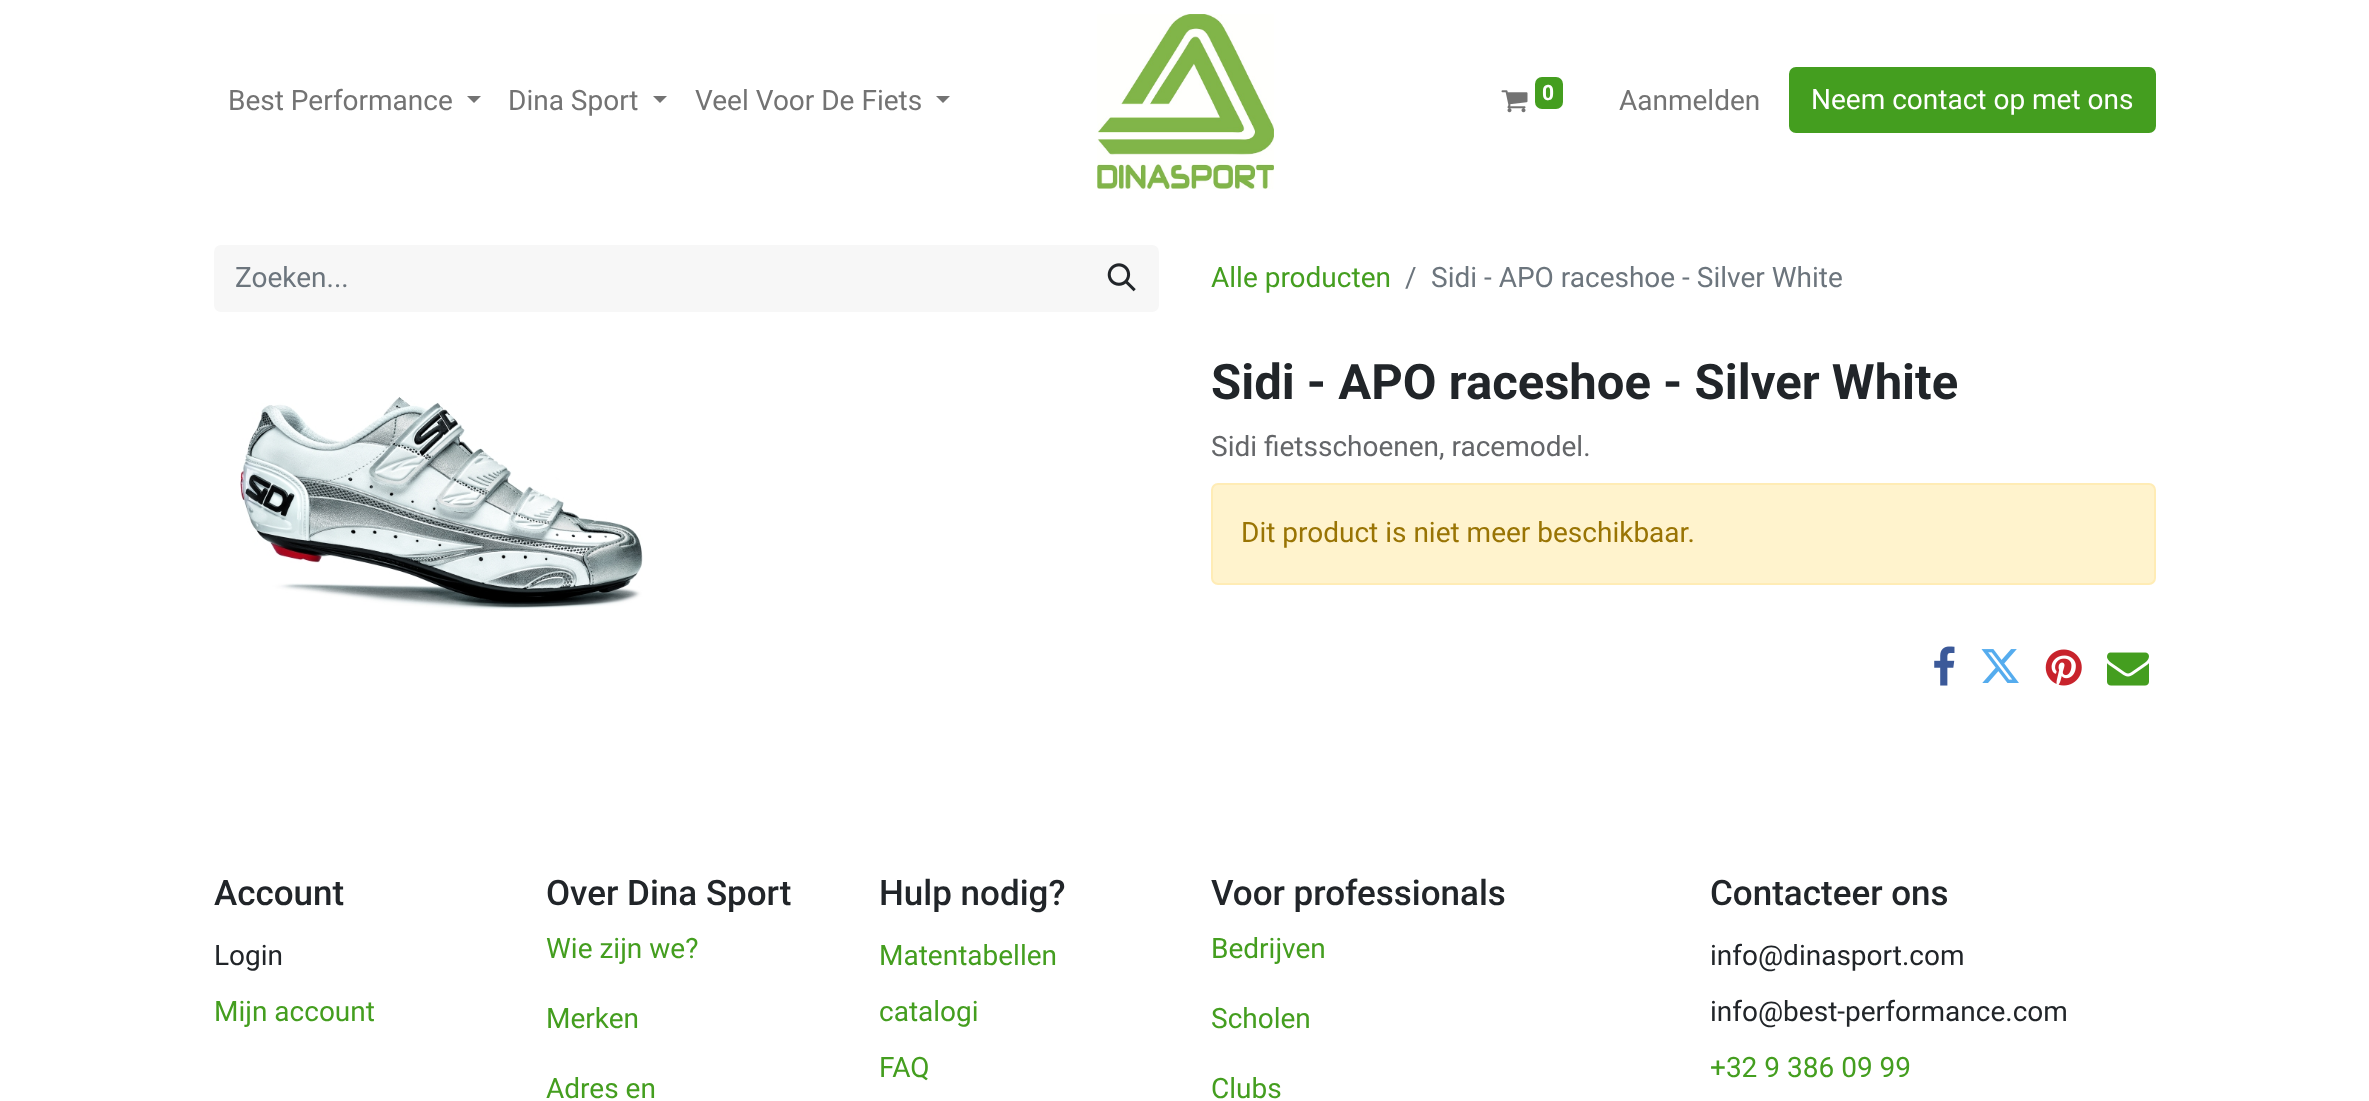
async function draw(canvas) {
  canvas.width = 2369;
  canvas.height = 1101;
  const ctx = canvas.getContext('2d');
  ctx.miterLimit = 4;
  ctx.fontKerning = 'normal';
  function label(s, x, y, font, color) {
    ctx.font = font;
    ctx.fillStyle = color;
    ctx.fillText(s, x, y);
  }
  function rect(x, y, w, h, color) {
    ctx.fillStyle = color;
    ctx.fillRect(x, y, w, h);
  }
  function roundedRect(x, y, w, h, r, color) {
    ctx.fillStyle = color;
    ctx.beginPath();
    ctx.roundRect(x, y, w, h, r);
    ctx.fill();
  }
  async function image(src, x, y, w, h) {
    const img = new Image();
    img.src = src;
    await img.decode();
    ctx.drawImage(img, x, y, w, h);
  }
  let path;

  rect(0, 0, 2369, 1101, '#fff');
  label('Best Performance', 228, 110, '28px Roboto', '#737373');
  path = new Path2D('M467 96H481L474 103Z');
  ctx.fill(path);
  label('Dina Sport', 508, 110, '28px Roboto', '#737373');
  path = new Path2D('M653 96H667L660 103Z');
  ctx.fill(path);
  label('Veel Voor De Fiets', 695, 110, '28px Roboto', '#737373');
  path = new Path2D('M936 96H950L943 103Z');
  ctx.fill(path);
  await image('assets/img1.png', 1097, 14, 177, 175);
  await image('assets/img2.png', 1501, 90, 27, 23);
  roundedRect(1535, 77, 28, 32, 7, '#449e1f');
  label('0', 1542, 100, 'bold 21px Roboto', '#fff');
  label('Aanmelden', 1619, 110, '28px Roboto', '#737373');
  ctx.fillStyle = '#449e1f';
  ctx.beginPath();
  ctx.roundRect(1790, 68, 365, 64, 6);
  ctx.fill();
  ctx.strokeStyle = '#449e1f';
  ctx.lineWidth = 2;
  ctx.stroke();
  label('Neem contact op met ons', 1811, 109, '28px Roboto', '#fff');
  ctx.fillStyle = '#f7f7f7';
  ctx.beginPath();
  ctx.roundRect(214, 245, 873, 67, [7, 0, 0, 7]);
  ctx.fill();
  label('Zoeken...', 235, 287, '28px Roboto', '#6c757d');
  ctx.fillStyle = '#f7f7f7';
  ctx.beginPath();
  ctx.roundRect(1085, 245, 74, 67, [0, 7, 7, 0]);
  ctx.fill();
  await image('assets/img3.png', 1107, 263, 29, 29);
  label('Alle producten', 1211, 287, '28px Roboto', '#449e1f');
  label('/', 1405, 287, '28px Roboto', '#6c757d');
  label('Sidi - APO raceshoe - Silver White', 1431, 287, '28px Roboto', '#6c757d');
  await image('assets/img4.png', 240, 397, 403, 212);
  label('Sidi - APO raceshoe - Silver White', 1211, 399, 'bold 49px Roboto', '#212529');
  label('Sidi fietsschoenen, racemodel.', 1211, 456, '28px Roboto', '#646669');
  ctx.fillStyle = '#fff3cd';
  ctx.beginPath();
  ctx.roundRect(1212, 484, 943, 100, 6);
  ctx.fill();
  ctx.strokeStyle = '#ffecb5';
  ctx.stroke();
  label('Dit product is niet meer beschikbaar.', 1241, 542, '28px Roboto', '#997404');
  await image('assets/img5.png', 1934, 646, 21, 40);
  await image('assets/img6.png', 1981, 649, 38, 34);
  await image('assets/img7.png', 2045, 649, 37, 37);
  await image('assets/img8.png', 2107, 652, 42, 34);
  label('Account', 214, 905, '500 35px Roboto', '#212529');
  label('Login', 214, 965, '28px Roboto', '#212529');
  label('Mijn account', 214, 1021, '28px Roboto', '#449e1f');
  label('Over Dina Sport', 546, 905, '500 35px Roboto', '#212529');
  label('Wie zijn we?', 546, 958, '28px Roboto', '#449e1f');
  label('Merken', 546, 1028, '28px Roboto', '#449e1f');
  label('Adres en', 546, 1098, '28px Roboto', '#449e1f');
  label('Hulp nodig?', 879, 905, '500 35px Roboto', '#212529');
  label('Matentabellen', 879, 965, '28px Roboto', '#449e1f');
  label('catalogi', 879, 1021, '28px Roboto', '#449e1f');
  label('FAQ', 879, 1077, '28px Roboto', '#449e1f');
  label('Voor professionals', 1211, 905, '500 35px Roboto', '#212529');
  label('Bedrijven', 1211, 958, '28px Roboto', '#449e1f');
  label('Scholen', 1211, 1028, '28px Roboto', '#449e1f');
  label('Clubs', 1211, 1098, '28px Roboto', '#449e1f');
  label('Contacteer ons', 1710, 905, '500 35px Roboto', '#212529');
  label('info@dinasport.com', 1710, 965, '28px Roboto', '#212529');
  label('info@best-performance.com', 1710, 1021, '28px Roboto', '#212529');
  label('+32 9 386 09 99', 1710, 1077, '28px Roboto', '#449e1f');
}

draw(document.querySelector('canvas'));
